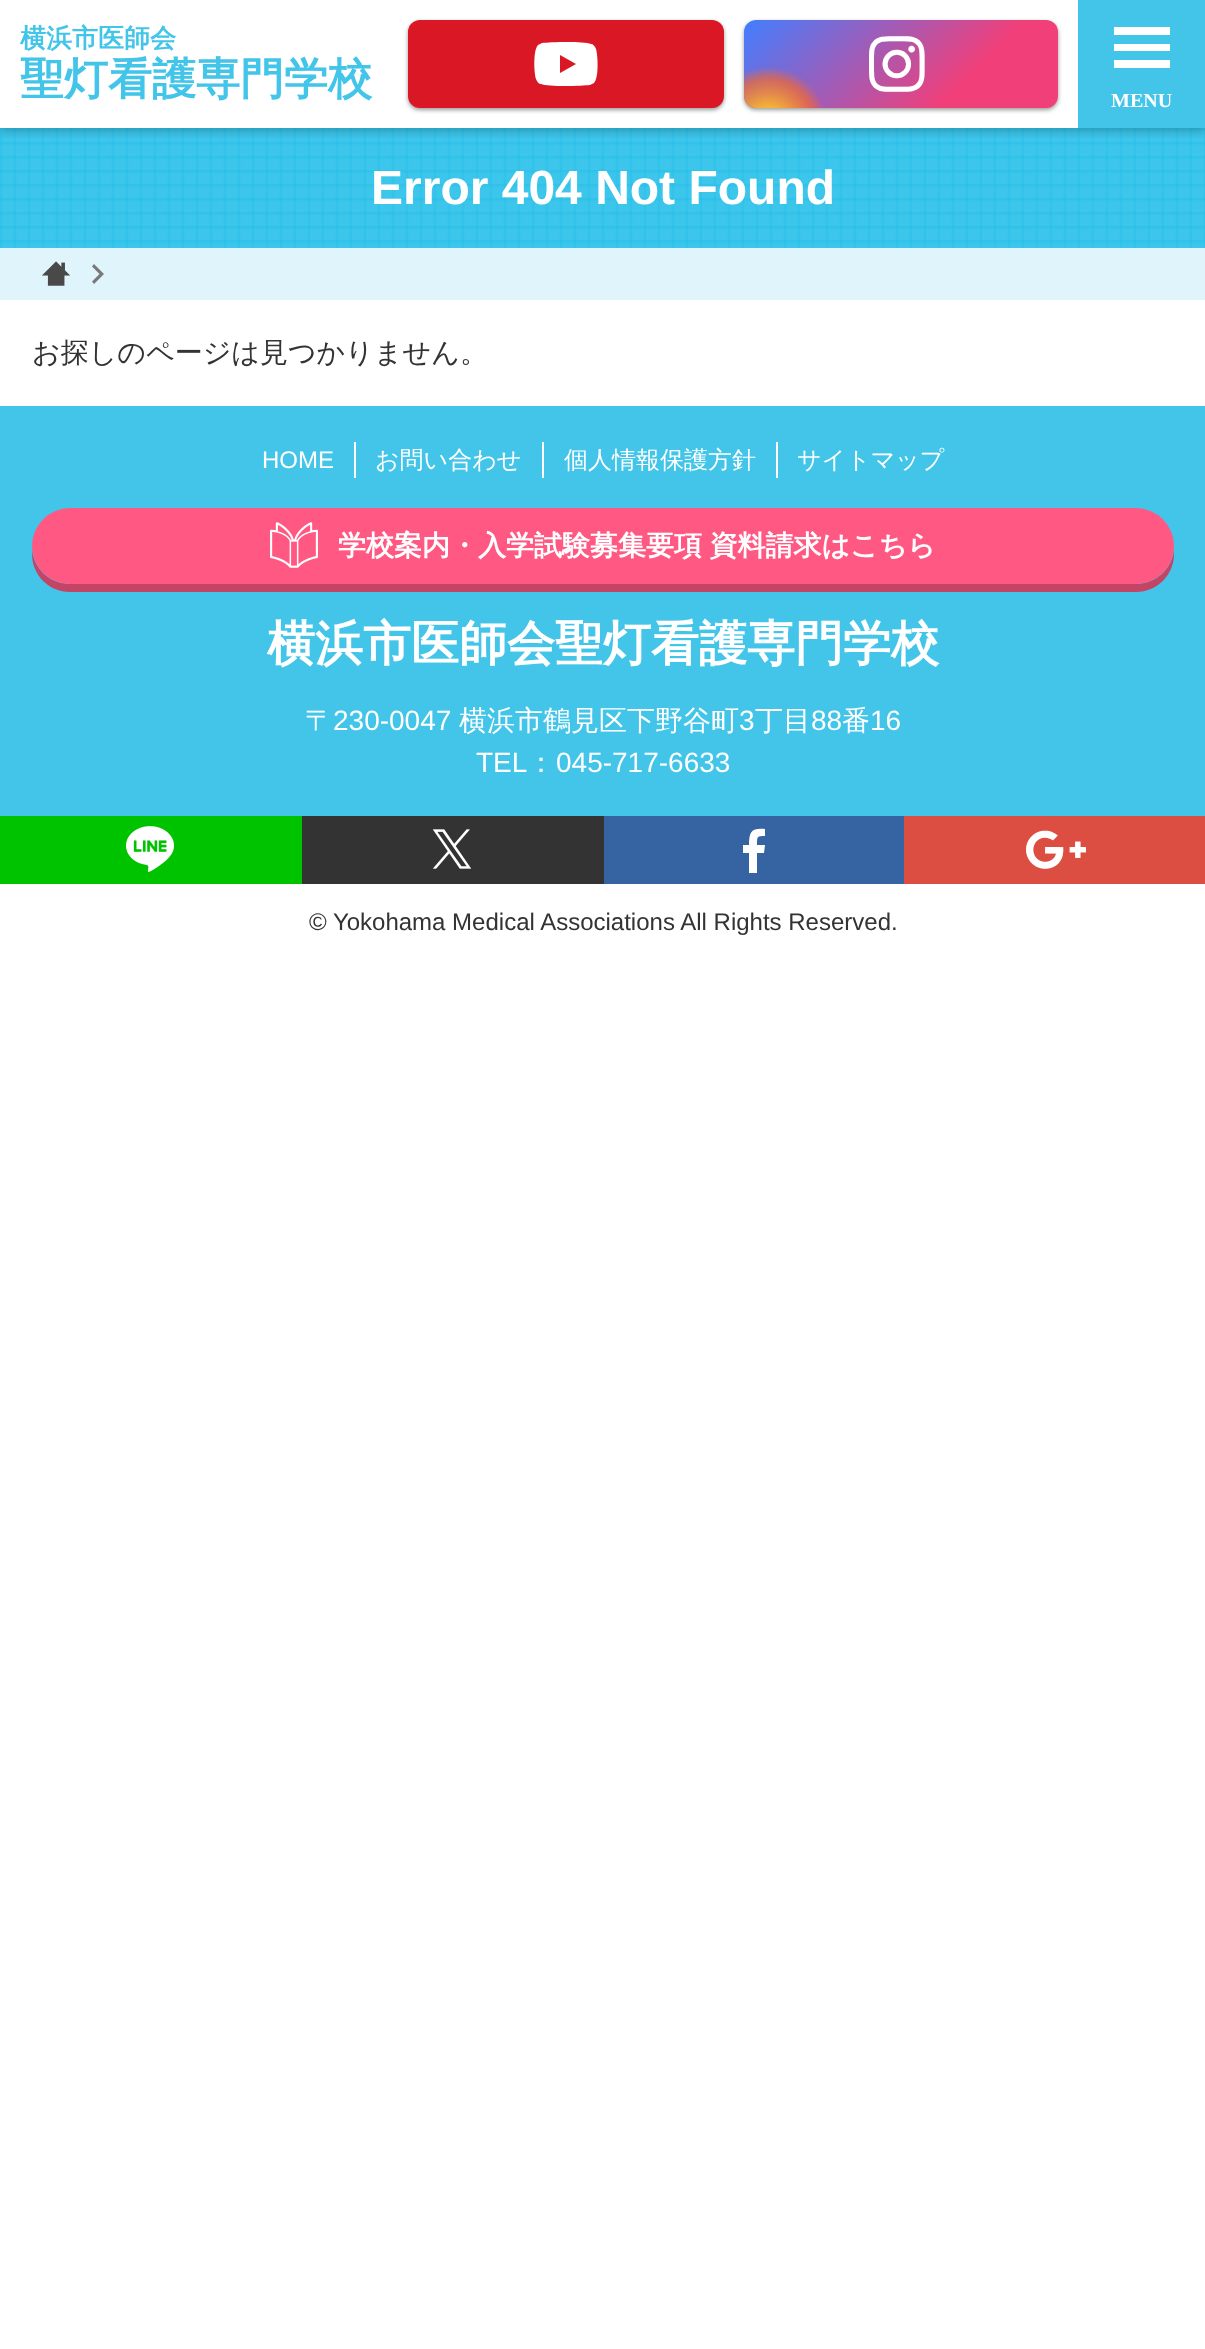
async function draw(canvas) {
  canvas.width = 1205;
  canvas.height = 2349;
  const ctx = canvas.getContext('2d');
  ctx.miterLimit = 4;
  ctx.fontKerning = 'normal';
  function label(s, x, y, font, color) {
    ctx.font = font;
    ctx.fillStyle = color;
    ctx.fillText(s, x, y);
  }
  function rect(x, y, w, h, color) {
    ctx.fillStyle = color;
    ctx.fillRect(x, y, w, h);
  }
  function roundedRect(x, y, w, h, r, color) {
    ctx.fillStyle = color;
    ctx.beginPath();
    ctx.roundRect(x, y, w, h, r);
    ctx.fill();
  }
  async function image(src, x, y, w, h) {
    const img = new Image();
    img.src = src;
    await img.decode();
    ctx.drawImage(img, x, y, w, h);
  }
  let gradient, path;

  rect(0, 0, 1205, 2349, '#fff');
  await image('assets/img1.png', 0, 128, 1205, 120);
  ctx.save();
  ctx.beginPath();
  ctx.rect(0, 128, 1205, 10);
  ctx.clip();
  ctx.fillStyle = '#04000033';
  ctx.filter = 'blur(5px)';
  ctx.beginPath();
  ctx.rect(0, 4, 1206, 128);
  ctx.fill();
  ctx.filter = 'none';
  ctx.restore();
  label('横浜市医師会', 20, 47, 'bold 26px WenQuanYi Zen Hei', '#43c5e9');
  label('聖灯看護専門学校', 20, 94, 'bold 44px WenQuanYi Zen Hei', '#43c5e9');
  ctx.fillStyle = '#999';
  ctx.filter = 'blur(2px)';
  ctx.beginPath();
  ctx.roundRect(408, 22, 316, 88, 12);
  ctx.fill();
  ctx.filter = 'none';
  roundedRect(408, 20, 316, 88, 12, '#da1725');
  ctx.fillStyle = '#fff';
  path = new Path2D('M596 49C595 46 593 44 591 44C584 41 550 42 542 43L538 45C533 50 534 73 536 79C537 82 539 84 541 84C548 87 582 86 590 85L594 83C599 78 598 56 596 49ZM560 73V55L576 64Z');
  ctx.fill(path);
  ctx.fillStyle = '#999';
  ctx.filter = 'blur(2px)';
  ctx.beginPath();
  ctx.roundRect(744, 22, 314, 88, 12);
  ctx.fill();
  ctx.filter = 'none';
  gradient = ctx.createLinearGradient(801, -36, 1002, 165);
  gradient.addColorStop(0, '#427eff');
  gradient.addColorStop(0.7, '#f13f79');
  ctx.fillStyle = gradient;
  ctx.beginPath();
  ctx.roundRect(744, 20, 314, 88, 12);
  ctx.fill();
  gradient = ctx.createRadialGradient(768, 126, 0, 768, 126, 85);
  gradient.addColorStop(0.1, '#ffdb2c');
  gradient.addColorStop(0.55, '#ff6922a6');
  gradient.addColorStop(0.7, '#ff692200');
  ctx.fillStyle = gradient;
  ctx.beginPath();
  ctx.roundRect(744, 66, 84, 42, [0, 0, 0, 12]);
  ctx.fill();
  label('󩅬', 869, 92, '64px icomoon', '#fff');
  rect(1078, 0, 127, 128, '#43c5e9');
  ctx.fillStyle = '#fff';
  path = new Path2D('M1114 27H1170V35H1114ZM1114 60H1170V68H1114ZM1114 44H1170V51H1114Z');
  ctx.fill(path);
  label('MENU', 1111, 107, 'bold 20px Liberation Serif', '#fff');
  label('Error 404 Not Found', 371, 204, 'bold 48px Liberation Sans', '#fff');
  rect(0, 248, 1205, 52, '#dff5fb');
  ctx.fillStyle = '#797979';
  path = new Path2D('M99.5 274L92 281.5L94 284L104 274L94 264L92 266.5Z');
  ctx.fill(path);
  await image('assets/img2.png', 42, 261, 28, 25);
  label('お探しのページは見つかりません。', 32, 362, '500 28px WenQuanYi Zen Hei', '#333');
  rect(0, 406, 1205, 410, '#43c5e9');
  rect(354, 442, 2, 36, '#fff');
  label('HOME', 262, 468, '24px Liberation Sans', '#fff');
  rect(542, 442, 2, 36, '#fff');
  label('お問い合わせ', 375, 468, '500 24px WenQuanYi Zen Hei', '#fff');
  rect(776, 442, 2, 36, '#fff');
  label('個人情報保護方針', 564, 468, '500 24px WenQuanYi Zen Hei', '#fff');
  label('サイトマップ', 797, 468, '500 24px WenQuanYi Zen Hei', '#fff');
  ctx.fillStyle = '#c34464';
  path = new Path2D('M32 550V554C32 575 49 592 70 592H1136C1157 592 1174 575 1174 554V550C1172 569 1156 584 1136 584H70C50 584 34 569 32 550Z');
  ctx.fill(path);
  roundedRect(32, 508, 1142, 76, 38, '#ff5983');
  await image('assets/img3.png', 270, 522, 48, 46);
  ctx.wordSpacing = '-1px';
  label('学校案内・入学試験募集要項 資料請求はこちら', 338, 555, 'bold 28px WenQuanYi Zen Hei', '#fff');
  ctx.wordSpacing = '0px';
  label('横浜市医師会聖灯看護専門学校', 267, 660, 'bold 48px WenQuanYi Zen Hei', '#fff');
  label('〒', 305, 730, '500 28px WenQuanYi Zen Hei', '#fff');
  label('230-0047', 333, 730, '28px Liberation Sans', '#fff');
  label('横浜市鶴見区下野谷町', 459, 730, '500 28px WenQuanYi Zen Hei', '#fff');
  label('3', 739, 730, '28px Liberation Sans', '#fff');
  label('丁目', 755, 730, '500 28px WenQuanYi Zen Hei', '#fff');
  label('88', 811, 730, '28px Liberation Sans', '#fff');
  label('番', 842, 730, '500 28px WenQuanYi Zen Hei', '#fff');
  label('16', 870, 730, '28px Liberation Sans', '#fff');
  label('TEL', 476, 772, '28px Liberation Sans', '#fff');
  label('：', 527, 772, '500 28px WenQuanYi Zen Hei', '#fff');
  label('045-717-6633', 556, 772, '28px Liberation Sans', '#fff');
  rect(0, 816, 302, 68, '#00c300');
  await image('assets/img4.png', 126, 826, 48, 46);
  rect(302, 816, 302, 68, '#333');
  await image('assets/img5.png', 432, 829, 40, 40);
  rect(604, 816, 300, 68, '#3664a2');
  ctx.fillStyle = '#fff';
  path = new Path2D('M757 873V853H764L765 845H757C757 836 757 836 765 836V829C752 828 749 831 749 845H743V853H749V873Z');
  ctx.fill(path);
  rect(904, 816, 301, 68, '#dc4e41');
  await image('assets/img6.png', 1026, 830, 60, 39);
  label('© Yokohama Medical Associations All Rights Reserved.', 309, 930, '24px Liberation Sans', '#333');
}

draw(document.querySelector('canvas'));
